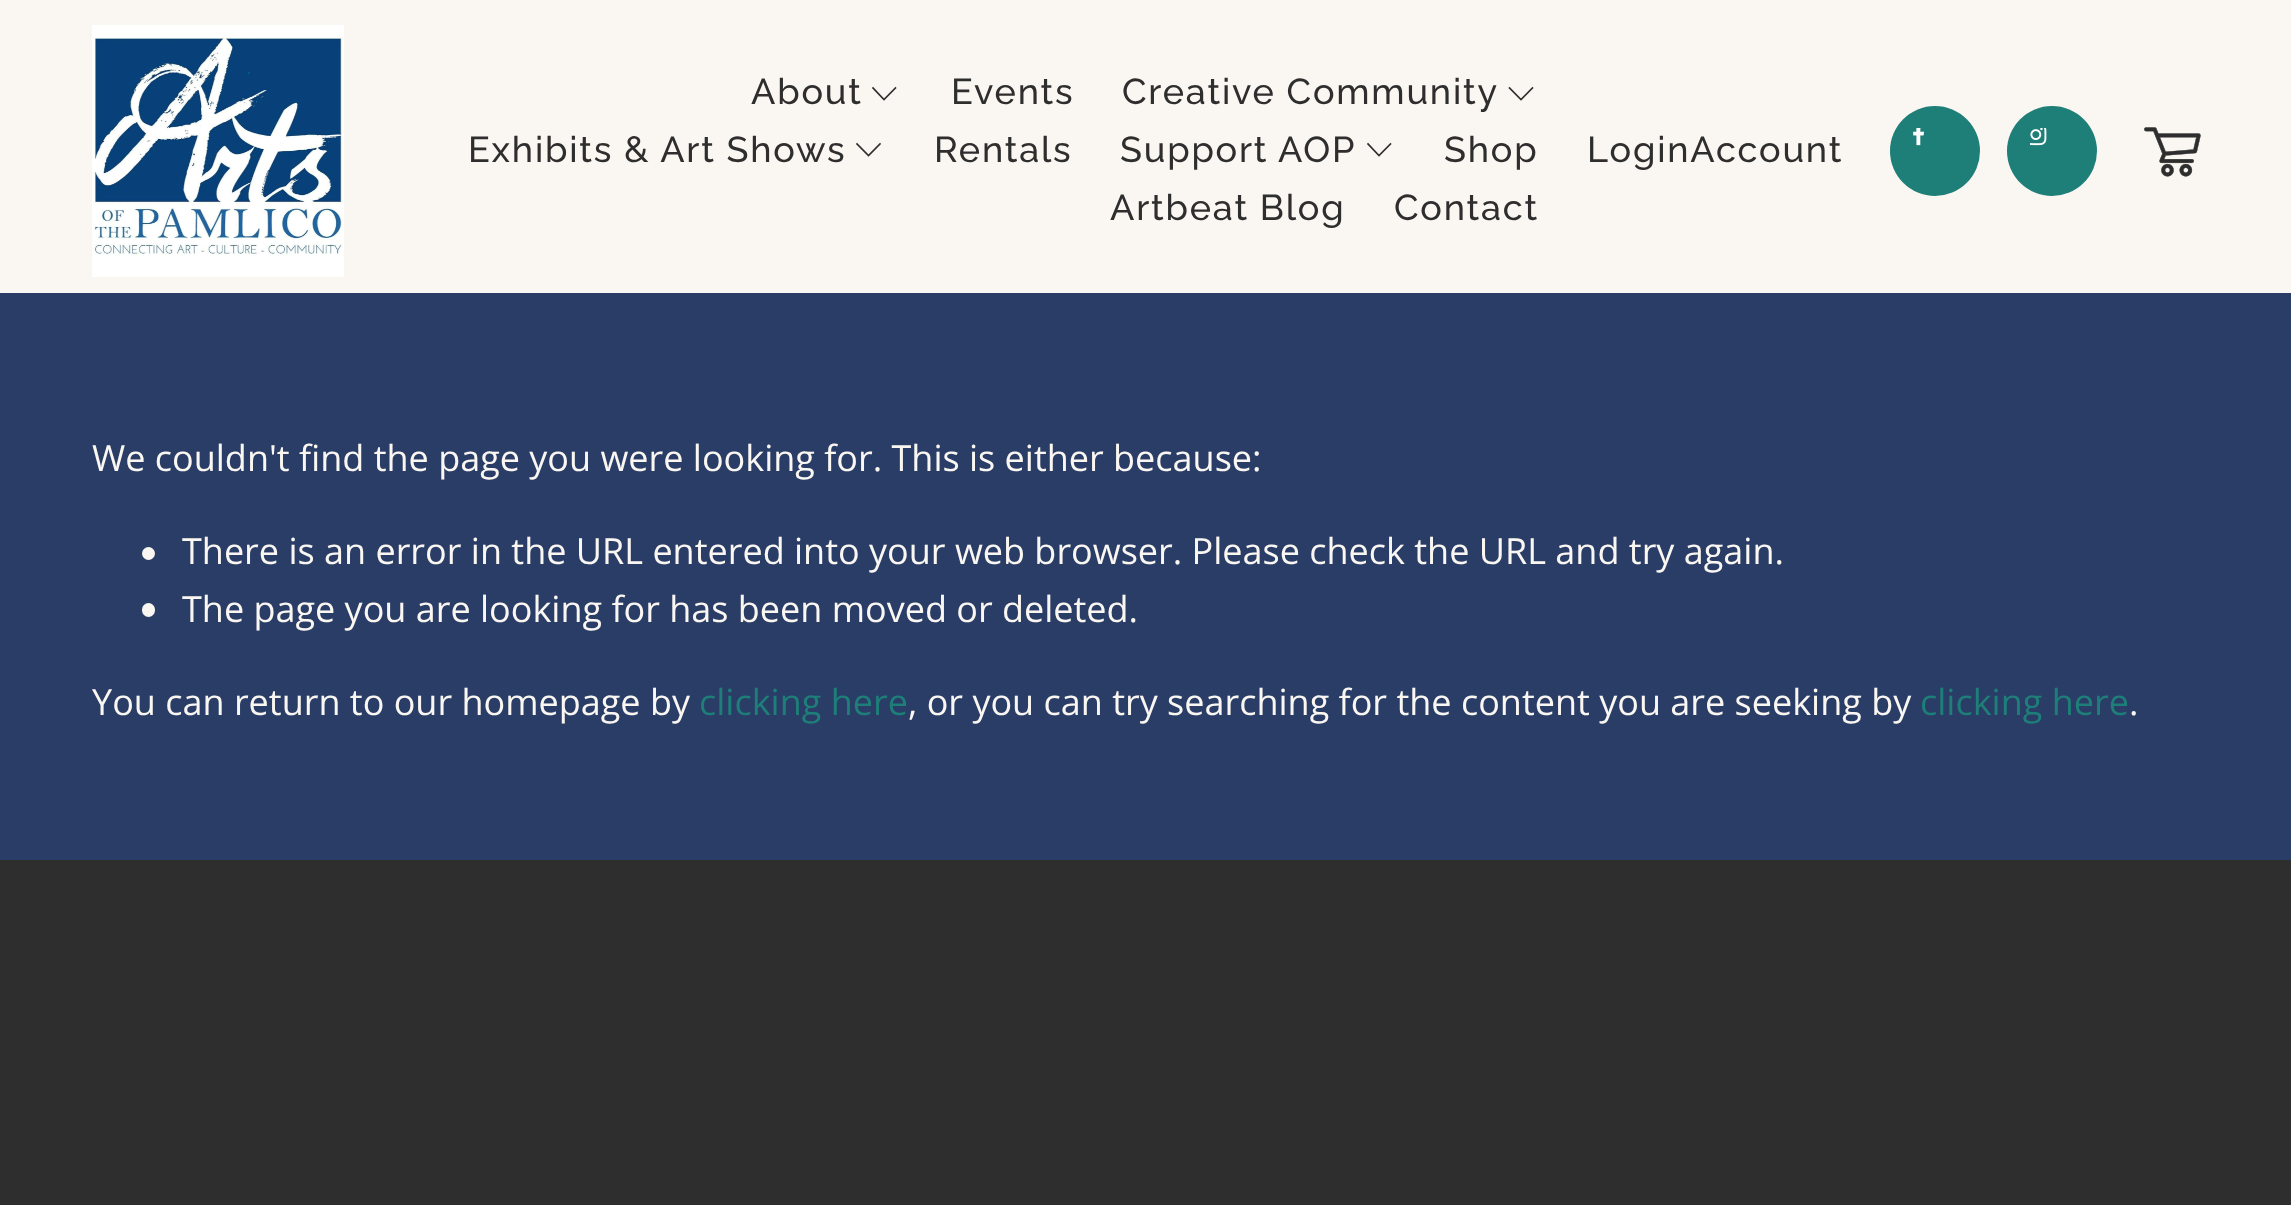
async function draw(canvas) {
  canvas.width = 2291;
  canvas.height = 1205;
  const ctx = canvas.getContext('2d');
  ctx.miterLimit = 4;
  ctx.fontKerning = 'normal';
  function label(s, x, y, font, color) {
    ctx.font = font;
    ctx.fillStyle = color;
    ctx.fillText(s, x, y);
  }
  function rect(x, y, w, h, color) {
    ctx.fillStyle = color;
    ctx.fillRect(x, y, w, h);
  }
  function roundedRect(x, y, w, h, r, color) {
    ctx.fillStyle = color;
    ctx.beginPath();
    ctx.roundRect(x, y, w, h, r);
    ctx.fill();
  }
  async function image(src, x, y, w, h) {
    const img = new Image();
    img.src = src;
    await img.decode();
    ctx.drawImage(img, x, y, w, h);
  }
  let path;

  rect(0, 0, 2291, 1205, '#2a3d66');
  rect(0, 0, 2291, 293, '#faf7f2');
  await image('assets/img1.png', 92, 25, 252, 252);
  ctx.letterSpacing = '1.8px';
  label('About', 751, 104, '500 36px Raleway', '#2e2e2e');
  path = new Path2D('M895.5 88L884 99.5L873 88');
  ctx.strokeStyle = '#2e2e2e';
  ctx.lineWidth = 1.6;
  ctx.lineCap = 'square';
  ctx.stroke(path);
  label('Events', 951, 104, '500 36px Raleway', '#2e2e2e');
  label('Creative Community', 1122, 104, '500 36px Raleway', '#2e2e2e');
  path = new Path2D('M1532.5 88L1521 99.5L1509.5 88');
  ctx.stroke(path);
  label('Exhibits & Art Shows', 468, 162, '500 36px Raleway', '#2e2e2e');
  path = new Path2D('M880 144L868.5 155.5L857 144');
  ctx.stroke(path);
  label('Rentals', 934, 162, '500 36px Raleway', '#2e2e2e');
  label('Support AOP', 1120, 162, '500 36px Raleway', '#2e2e2e');
  path = new Path2D('M1390.5 144L1379 155.5L1368 144');
  ctx.stroke(path);
  label('Shop', 1444, 162, '500 36px Raleway', '#2e2e2e');
  label('Artbeat Blog', 1110, 220, '500 36px Raleway', '#2e2e2e');
  label('Contact', 1394, 220, '500 36px Raleway', '#2e2e2e');
  label('LoginAccount', 1587, 162, '500 36px Raleway', '#2e2e2e');
  ctx.fillStyle = '#1e7e78';
  ctx.beginPath();
  ctx.arc(1935, 151, 45, 0, 2 * Math.PI);
  ctx.fill();
  await image('assets/img2.png', 1913, 128, 11, 18);
  ctx.beginPath();
  ctx.arc(2052, 151, 45, 0, 2 * Math.PI);
  ctx.fill();
  await image('assets/img3.png', 2030, 128, 17, 18);
  await image('assets/img4.png', 2144, 127, 57, 50);
  ctx.letterSpacing = '0px';
  label('We couldn\'t find the page you were looking for. This is either because:', 92, 471, '36px Open Sans', '#faf7f2');
  ctx.beginPath();
  ctx.arc(148.5, 553.5, 6.5, 0, 2 * Math.PI);
  ctx.fill();
  label('There is an error in the URL entered into your web browser. Please check the URL and try again.', 182, 564, '36px Open Sans', '#faf7f2');
  roundedRect(142, 603, 13, 14, 6.5, '#faf7f2');
  label('The page you are looking for has been moved or deleted.', 182, 622, '36px Open Sans', '#faf7f2');
  label('You can return to our homepage by', 92, 715, '36px Open Sans', '#faf7f2');
  label('clicking here', 699, 715, '36px Open Sans', '#1e7e78');
  label(', or you can try searching for the content you are seeking by', 908, 715, '36px Open Sans', '#faf7f2');
  label('clicking here', 1920, 715, '36px Open Sans', '#1e7e78');
  label('.', 2129, 715, '36px Open Sans', '#faf7f2');
  rect(0, 860, 2291, 345, '#2e2e2e');
}

draw(document.querySelector('canvas'));
